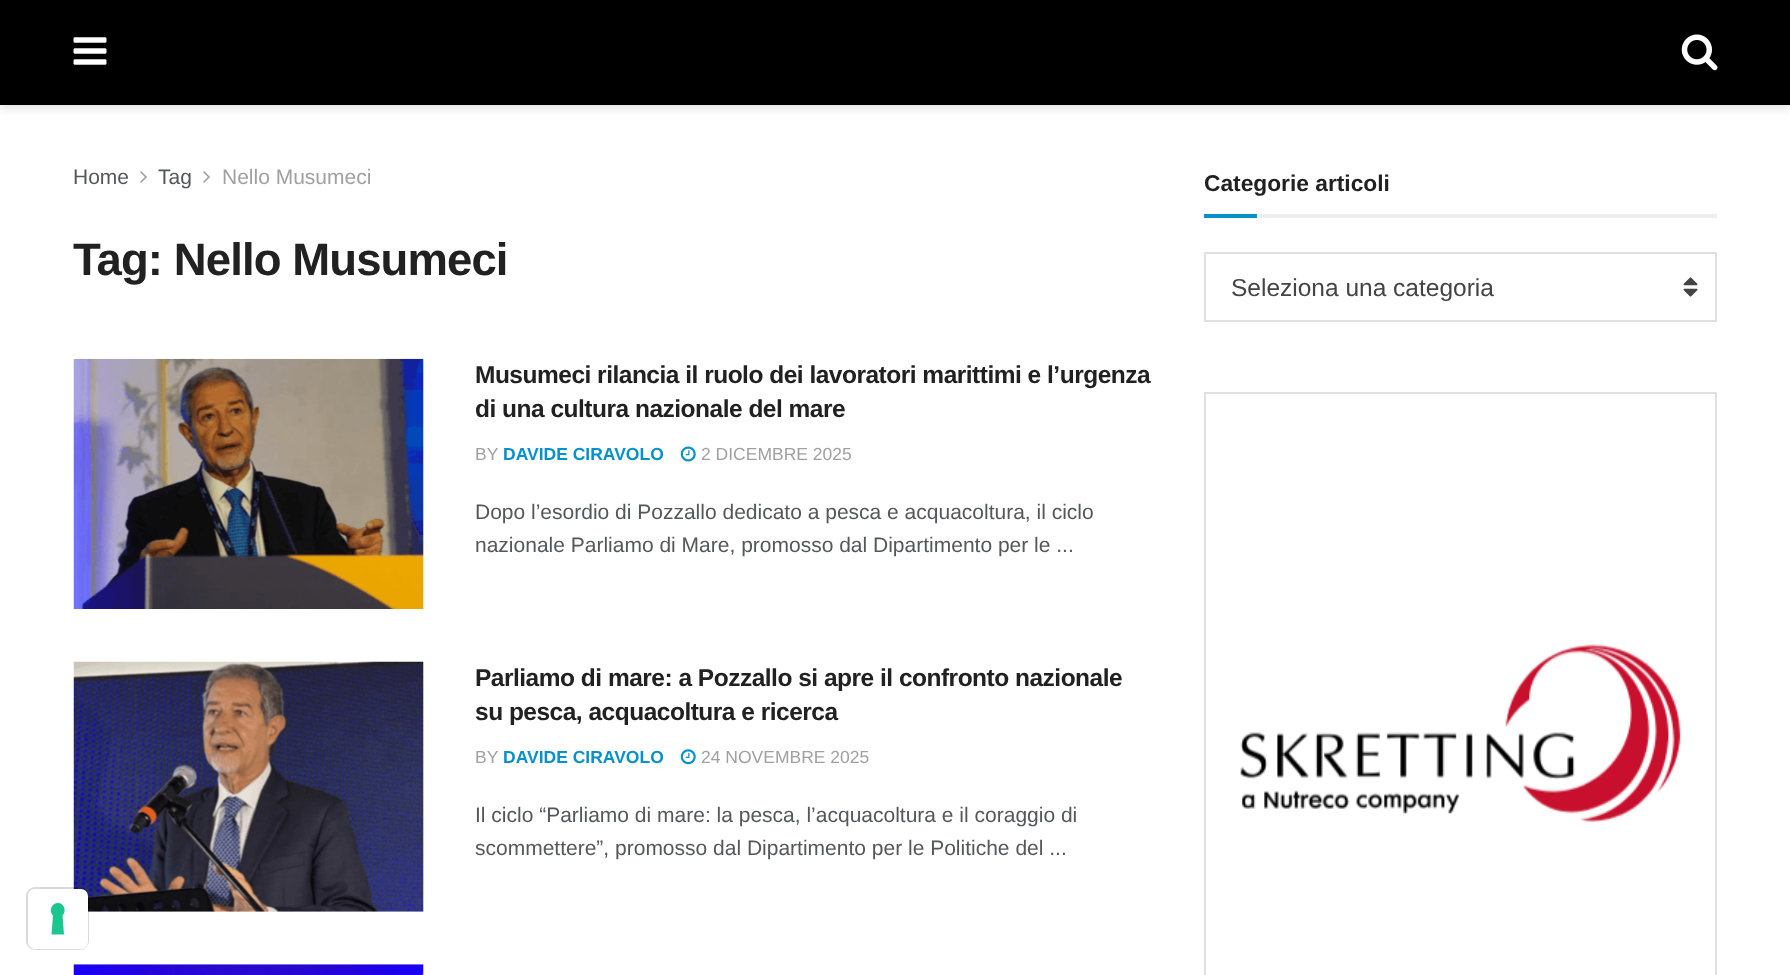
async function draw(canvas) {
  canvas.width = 1790;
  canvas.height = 975;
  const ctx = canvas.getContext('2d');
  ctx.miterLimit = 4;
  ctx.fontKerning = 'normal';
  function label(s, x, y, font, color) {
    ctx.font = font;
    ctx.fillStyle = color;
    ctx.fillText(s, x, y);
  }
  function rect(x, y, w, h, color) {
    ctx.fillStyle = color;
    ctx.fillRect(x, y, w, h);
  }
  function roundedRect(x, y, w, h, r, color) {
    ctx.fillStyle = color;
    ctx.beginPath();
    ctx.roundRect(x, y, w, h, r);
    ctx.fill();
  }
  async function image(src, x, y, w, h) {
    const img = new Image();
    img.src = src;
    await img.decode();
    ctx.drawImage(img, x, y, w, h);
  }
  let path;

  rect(0, 0, 1790, 975, '#fff');
  ctx.fillStyle = '#0000001a';
  ctx.filter = 'blur(5px)';
  ctx.beginPath();
  ctx.rect(0, 4, 1790, 105);
  ctx.fill();
  ctx.filter = 'none';
  rect(0, 0, 1790, 105, '#000');
  await image('assets/img1.png', 73, 37, 34, 28);
  await image('assets/img2.png', 1681, 34, 37, 37);
  label('Home', 73, 184, '21px Liberation Sans', '#53585c');
  await image('assets/img3.png', 140, 171, 7, 12);
  label('Tag', 158, 184, '21px Liberation Sans', '#53585c');
  await image('assets/img3.png', 203, 171, 7, 12);
  label('Nello Musumeci', 222, 184, '21px Liberation Sans', '#a0a0a0');
  ctx.letterSpacing = '-0.9px';
  label('Tag: Nello Musumeci', 73, 275, 'bold 45.5px Liberation Sans', '#212121');
  rect(423, 359, 1, 250, '#f7f7f7');
  await image('assets/img4.png', 73, 358, 351, 251);
  ctx.letterSpacing = '-0.5px';
  label('Musumeci rilancia il ruolo dei lavoratori marittimi e l’urgenza', 475, 383, 'bold 24.5px Liberation Sans', '#212121');
  label('di una cultura nazionale del mare', 475, 417, 'bold 24.5px Liberation Sans', '#212121');
  ctx.letterSpacing = '0px';
  label('BY', 475, 460, '17.5px Liberation Sans', '#a0a0a0');
  label('DAVIDE CIRAVOLO', 503, 460, 'bold 17.5px Liberation Sans', '#0690cc');
  await image('assets/img5.png', 680, 446, 16, 16);
  label('2 DICEMBRE 2025', 701, 460, '17.5px Liberation Sans', '#a0a0a0');
  label('Dopo l’esordio di Pozzallo dedicato a pesca e acquacoltura, il ciclo', 475, 519, '21px Liberation Sans', '#53585c');
  label('nazionale Parliamo di Mare, promosso dal Dipartimento per le ...', 475, 552, '21px Liberation Sans', '#53585c');
  rect(88, 662, 336, 250, '#f7f7f7');
  await image('assets/img6.png', 73, 661, 351, 251);
  ctx.letterSpacing = '-0.5px';
  label('Parliamo di mare: a Pozzallo si apre il confronto nazionale', 475, 686, 'bold 24.5px Liberation Sans', '#212121');
  label('su pesca, acquacoltura e ricerca', 475, 720, 'bold 24.5px Liberation Sans', '#212121');
  ctx.letterSpacing = '0px';
  label('BY', 475, 763, '17.5px Liberation Sans', '#a0a0a0');
  label('DAVIDE CIRAVOLO', 503, 763, 'bold 17.5px Liberation Sans', '#0690cc');
  await image('assets/img7.png', 680, 749, 16, 16);
  label('24 NOVEMBRE 2025', 701, 763, '17.5px Liberation Sans', '#a0a0a0');
  label('Il ciclo “Parliamo di mare: la pesca, l’acquacoltura e il coraggio di', 475, 822, '21px Liberation Sans', '#53585c');
  label('scommettere”, promosso dal Dipartimento per le Politiche del ...', 475, 855, '21px Liberation Sans', '#53585c');
  rect(74, 964, 350, 11, '#f7f7f7');
  await image('assets/img8.png', 73, 964, 351, 11);
  rect(1257, 214, 460, 4, '#eee');
  label('Categorie articoli', 1204, 191, 'bold 22.75px Liberation Sans', '#212121');
  rect(1204, 214, 53, 4, '#0690cc');
  ctx.strokeStyle = '#e0e0e0';
  ctx.lineWidth = 2;
  ctx.strokeRect(1205, 253, 511, 68);
  label('Seleziona una categoria', 1231, 296, '24.5px Liberation Sans', '#444');
  await image('assets/img9.png', 1683, 277, 15, 20);
  ctx.strokeRect(1205, 393, 511, 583);
  await image('assets/img10.png', 1240, 644, 441, 179);
  ctx.beginPath();
  ctx.roundRect(27, 888, 61, 61, 8);
  ctx.strokeStyle = '#00000026';
  ctx.stroke();
  roundedRect(28, 889, 60, 60, 7, '#fff');
  ctx.fillStyle = '#1cc691';
  path = new Path2D('M58 903C64 903 67 911 62.5 915.5L64 934.5H51.5L53 915.5C48.5 911 51.5 903 58 903Z');
  ctx.fill(path, 'evenodd');
}

draw(document.querySelector('canvas'));
